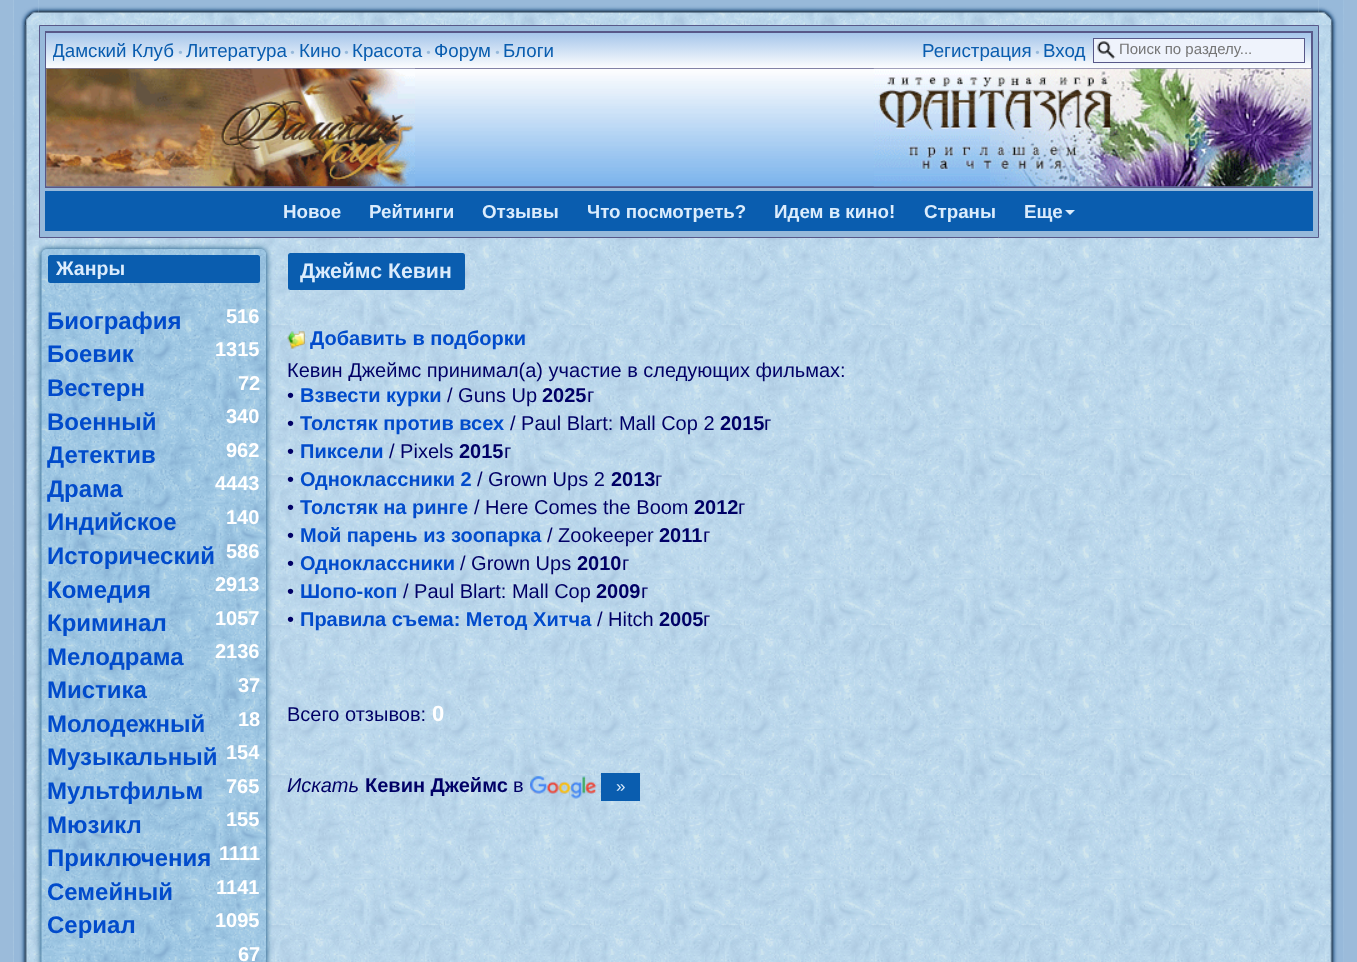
async function draw(canvas) {
  canvas.width = 1357;
  canvas.height = 962;
  const ctx = canvas.getContext('2d');
  ctx.miterLimit = 4;
  ctx.fontKerning = 'normal';
  function label(s, x, y, font, color) {
    ctx.font = font;
    ctx.fillStyle = color;
    ctx.fillText(s, x, y);
  }
  function rect(x, y, w, h, color) {
    ctx.fillStyle = color;
    ctx.fillRect(x, y, w, h);
  }
  function roundedRect(x, y, w, h, r, color) {
    ctx.fillStyle = color;
    ctx.beginPath();
    ctx.roundRect(x, y, w, h, r);
    ctx.fill();
  }
  async function image(src, x, y, w, h) {
    const img = new Image();
    img.src = src;
    await img.decode();
    ctx.drawImage(img, x, y, w, h);
  }
  let gradient, path;

  rect(0, 0, 1357, 962, '#9bbbda');
  await image('assets/img1.png', 13, 0, 1331, 962);
  await image('assets/img2.png', 14, 0, 1330, 962);
  ctx.fillStyle = '#97b9da';
  ctx.beginPath();
  ctx.rect(39.5, 25.5, 1279, 212);
  ctx.fill();
  ctx.strokeStyle = '#585889';
  ctx.stroke();
  rect(45, 31, 1268, 157, '#585889');
  gradient = ctx.createLinearGradient(679, 32, 679, 68);
  gradient.addColorStop(0, '#a3c4ea');
  gradient.addColorStop(1, '#fcfdfe');
  ctx.fillStyle = gradient;
  ctx.fillRect(46, 33, 1265, 35);
  ctx.save();
  ctx.beginPath();
  ctx.rect(53, 38, 501, 25);
  ctx.clip();
  label('Дамский Клуб', 52, 57, '18.75px Liberation Sans', '#0a5daf');
  ctx.restore();
  label('•', 178, 57, '14px Liberation Serif', '#97b9da');
  label('Литература', 186, 57, '18.75px Liberation Sans', '#0a5daf');
  label('•', 290, 57, '14px Liberation Serif', '#97b9da');
  label('Кино', 299, 57, '18.75px Liberation Sans', '#0a5daf');
  label('•', 344, 57, '14px Liberation Serif', '#97b9da');
  label('Красота', 352, 57, '18.75px Liberation Sans', '#0a5daf');
  label('•', 426, 57, '14px Liberation Serif', '#97b9da');
  label('Форум', 434, 57, '18.75px Liberation Sans', '#0a5daf');
  label('•', 495, 57, '14px Liberation Serif', '#97b9da');
  label('Блоги', 503, 57, '18.75px Liberation Sans', '#0a5daf');
  label('Регистрация', 922, 57, '18.75px Liberation Sans', '#0a5daf');
  label('•', 1035, 57, '14px Liberation Serif', '#97b9da');
  label('Вход', 1043, 57, '18.75px Liberation Sans', '#0a5daf');
  rect(1094, 39, 210, 23, '#eff3fc');
  await image('assets/img3.png', 1097, 41, 19, 18);
  ctx.strokeRect(1093.5, 38.5, 211, 24);
  label('Поиск по разделу...', 1119, 54, '15px Liberation Sans', '#757575');
  await image('assets/img4.png', 46, 68, 1266, 119);
  await image('assets/img5.png', 46, 68, 369, 119);
  await image('assets/img6.png', 873, 68, 439, 119);
  rect(45, 191, 1268, 40, '#0a5daf');
  label('Новое', 283, 218, 'bold 18.75px Liberation Sans', '#dbecfc');
  label('Рейтинги', 369, 218, 'bold 18.75px Liberation Sans', '#dbecfc');
  label('Отзывы', 482, 218, 'bold 18.75px Liberation Sans', '#dbecfc');
  label('Что посмотреть?', 587, 218, 'bold 18.75px Liberation Sans', '#dbecfc');
  label('Идем в кино!', 774, 218, 'bold 18.75px Liberation Sans', '#dbecfc');
  label('Страны', 924, 218, 'bold 18.75px Liberation Sans', '#dbecfc');
  label('Еще', 1024, 218, 'bold 18.75px Liberation Sans', '#dbecfc');
  path = new Path2D('M1065 210H1075L1070 215Z');
  ctx.fill(path);
  ctx.fillStyle = '#034775';
  ctx.filter = 'blur(3px)';
  ctx.beginPath();
  ctx.roundRect(41, 249, 225, 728, 6);
  ctx.fill();
  ctx.filter = 'none';
  await image('assets/img7.png', 41, 249, 225, 713);
  roundedRect(48, 255, 212, 28, 2.5, '#0a5daf');
  label('Жанры', 56, 275, 'bold 19.5px Liberation Sans', '#dbecfc');
  label('Биография', 47, 329, 'bold 24px Liberation Sans', '#014bcb');
  label('516', 226, 323, 'bold 20px Liberation Sans', '#fff');
  label('Боевик', 47, 362, 'bold 24px Liberation Sans', '#014bcb');
  label('1315', 215, 356, 'bold 20px Liberation Sans', '#fff');
  label('Вестерн', 47, 396, 'bold 24px Liberation Sans', '#014bcb');
  label('72', 238, 390, 'bold 20px Liberation Sans', '#fff');
  label('Военный', 47, 430, 'bold 24px Liberation Sans', '#014bcb');
  label('340', 226, 423, 'bold 20px Liberation Sans', '#fff');
  label('Детектив', 47, 463, 'bold 24px Liberation Sans', '#014bcb');
  label('962', 226, 457, 'bold 20px Liberation Sans', '#fff');
  label('Драма', 47, 497, 'bold 24px Liberation Sans', '#014bcb');
  label('4443', 215, 490, 'bold 20px Liberation Sans', '#fff');
  label('Индийское', 47, 530, 'bold 24px Liberation Sans', '#014bcb');
  label('140', 226, 524, 'bold 20px Liberation Sans', '#fff');
  label('Исторический', 47, 564, 'bold 24px Liberation Sans', '#014bcb');
  label('586', 226, 558, 'bold 20px Liberation Sans', '#fff');
  label('Комедия', 47, 598, 'bold 24px Liberation Sans', '#014bcb');
  label('2913', 215, 591, 'bold 20px Liberation Sans', '#fff');
  label('Криминал', 47, 631, 'bold 24px Liberation Sans', '#014bcb');
  label('1057', 215, 625, 'bold 20px Liberation Sans', '#fff');
  label('Мелодрама', 47, 665, 'bold 24px Liberation Sans', '#014bcb');
  label('2136', 215, 658, 'bold 20px Liberation Sans', '#fff');
  label('Мистика', 47, 698, 'bold 24px Liberation Sans', '#014bcb');
  label('37', 238, 692, 'bold 20px Liberation Sans', '#fff');
  label('Молодежный', 47, 732, 'bold 24px Liberation Sans', '#014bcb');
  label('18', 238, 726, 'bold 20px Liberation Sans', '#fff');
  label('Музыкальный', 47, 765, 'bold 24px Liberation Sans', '#014bcb');
  label('154', 226, 759, 'bold 20px Liberation Sans', '#fff');
  label('Мультфильм', 47, 799, 'bold 24px Liberation Sans', '#014bcb');
  label('765', 226, 793, 'bold 20px Liberation Sans', '#fff');
  label('Мюзикл', 47, 833, 'bold 24px Liberation Sans', '#014bcb');
  label('155', 226, 826, 'bold 20px Liberation Sans', '#fff');
  label('Приключения', 47, 866, 'bold 24px Liberation Sans', '#014bcb');
  label('1111', 219, 860, 'bold 20px Liberation Sans', '#fff');
  label('Семейный', 47, 900, 'bold 24px Liberation Sans', '#014bcb');
  label('1141', 216, 894, 'bold 20px Liberation Sans', '#fff');
  label('Сериал', 47, 933, 'bold 24px Liberation Sans', '#014bcb');
  label('1095', 215, 927, 'bold 20px Liberation Sans', '#fff');
  label('67', 238, 961, 'bold 20px Liberation Sans', '#fff');
  roundedRect(288, 253, 177, 37, 2.5, '#0a5daf');
  label('Джеймс Кевин', 300, 278, 'bold 21.25px Liberation Sans', '#dbecfc');
  await image('assets/img8.png', 287, 331, 18, 18);
  label('Добавить в подборки', 310, 345, 'bold 20px Liberation Sans', '#014bcb');
  label('Кевин Джеймс принимал(а) участие в следующих фильмах:', 287, 377, '20px Liberation Sans', '#006');
  label('•', 287, 402, '20px Liberation Sans', '#006');
  label('Взвести курки', 300, 402, 'bold 20px Liberation Sans', '#014bcb');
  label('/ Guns Up', 447, 402, '20px Liberation Sans', '#006');
  label('2025', 542, 402, 'bold 20px Liberation Sans', '#006');
  label('г', 587, 402, '20px Liberation Sans', '#006');
  label('•', 287, 430, '20px Liberation Sans', '#006');
  label('Толстяк против всех', 300, 430, 'bold 20px Liberation Sans', '#014bcb');
  label('/ Paul Blart: Mall Cop 2', 510, 430, '20px Liberation Sans', '#006');
  label('2015', 720, 430, 'bold 20px Liberation Sans', '#006');
  label('г', 764, 430, '20px Liberation Sans', '#006');
  label('•', 287, 458, '20px Liberation Sans', '#006');
  label('Пиксели', 300, 458, 'bold 20px Liberation Sans', '#014bcb');
  label('/ Pixels', 389, 458, '20px Liberation Sans', '#006');
  label('2015', 459, 458, 'bold 20px Liberation Sans', '#006');
  label('г', 504, 458, '20px Liberation Sans', '#006');
  label('•', 287, 486, '20px Liberation Sans', '#006');
  label('Одноклассники 2', 300, 486, 'bold 20px Liberation Sans', '#014bcb');
  label('/ Grown Ups 2', 477, 486, '20px Liberation Sans', '#006');
  label('2013', 611, 486, 'bold 20px Liberation Sans', '#006');
  label('г', 655, 486, '20px Liberation Sans', '#006');
  label('•', 287, 514, '20px Liberation Sans', '#006');
  label('Толстяк на ринге', 300, 514, 'bold 20px Liberation Sans', '#014bcb');
  label('/ Here Comes the Boom', 474, 514, '20px Liberation Sans', '#006');
  label('2012', 694, 514, 'bold 20px Liberation Sans', '#006');
  label('г', 738, 514, '20px Liberation Sans', '#006');
  label('•', 287, 542, '20px Liberation Sans', '#006');
  label('Мой парень из зоопарка', 300, 542, 'bold 20px Liberation Sans', '#014bcb');
  label('/ Zookeeper', 547, 542, '20px Liberation Sans', '#006');
  label('2011', 659, 542, 'bold 20px Liberation Sans', '#006');
  label('г', 703, 542, '20px Liberation Sans', '#006');
  label('•', 287, 570, '20px Liberation Sans', '#006');
  label('Одноклассники', 300, 570, 'bold 20px Liberation Sans', '#014bcb');
  label('/ Grown Ups', 460, 570, '20px Liberation Sans', '#006');
  label('2010', 577, 570, 'bold 20px Liberation Sans', '#006');
  label('г', 622, 570, '20px Liberation Sans', '#006');
  label('•', 287, 598, '20px Liberation Sans', '#006');
  label('Шопо-коп', 300, 598, 'bold 20px Liberation Sans', '#014bcb');
  label('/ Paul Blart: Mall Cop', 403, 598, '20px Liberation Sans', '#006');
  label('2009', 596, 598, 'bold 20px Liberation Sans', '#006');
  label('г', 641, 598, '20px Liberation Sans', '#006');
  label('•', 287, 626, '20px Liberation Sans', '#006');
  label('Правила съема: Метод Хитча', 300, 626, 'bold 20px Liberation Sans', '#014bcb');
  label('/ Hitch', 597, 626, '20px Liberation Sans', '#006');
  label('2005', 659, 626, 'bold 20px Liberation Sans', '#006');
  label('г', 703, 626, '20px Liberation Sans', '#006');
  label('Всего отзывов:', 287, 721, '20px Liberation Sans', '#006');
  label('0', 432, 721, 'bold 22px Liberation Sans', '#fff');
  label('Искать', 287, 792, 'italic 20px Liberation Sans', '#006');
  label('Кевин Джеймс', 365, 792, 'bold 20px Liberation Sans', '#006');
  label('в', 513, 792, '20px Liberation Sans', '#006');
  await image('assets/img9.png', 530, 776, 67, 23);
  rect(601, 773, 39, 28, '#0a5daf');
  label('»', 616, 792, '17px Liberation Sans', '#dbecfc');
}

draw(document.querySelector('canvas'));
